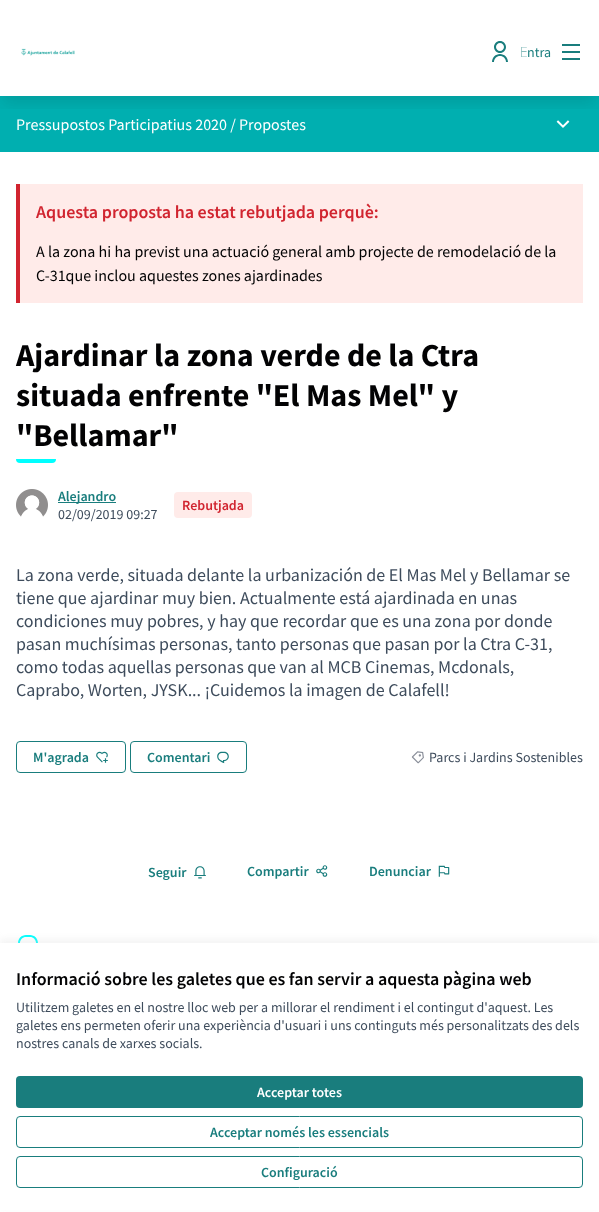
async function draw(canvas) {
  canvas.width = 599;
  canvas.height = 1212;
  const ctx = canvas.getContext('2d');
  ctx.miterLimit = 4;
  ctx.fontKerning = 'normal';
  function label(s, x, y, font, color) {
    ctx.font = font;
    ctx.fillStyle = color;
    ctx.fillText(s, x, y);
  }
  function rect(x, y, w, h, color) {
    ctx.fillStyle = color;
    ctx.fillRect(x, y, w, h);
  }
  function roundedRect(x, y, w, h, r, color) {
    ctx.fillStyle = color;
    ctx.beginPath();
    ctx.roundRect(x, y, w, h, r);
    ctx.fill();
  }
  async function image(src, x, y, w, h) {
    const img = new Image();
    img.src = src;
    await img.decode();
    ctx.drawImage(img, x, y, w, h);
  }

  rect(0, 0, 599, 1212, '#fff');
  rect(0, 96, 599, 56, '#00afb0');
  await image('assets/img4.png', 556, 120, 14, 8);
  ctx.save();
  ctx.beginPath();
  ctx.rect(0, 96, 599, 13);
  ctx.clip();
  ctx.fillStyle = '#0000001a';
  ctx.filter = 'blur(7.5px)';
  ctx.beginPath();
  ctx.rect(3, 13, 593, 90);
  ctx.fill();
  ctx.filter = 'none';
  ctx.restore();
  await image('assets/img1.png', 21, 48, 54, 8);
  await image('assets/img2.png', 492, 41, 16, 21);
  label('E', 520, 57, '100 14px Noto Sans', '#197d7d');
  label('ntra', 527, 57, '14px Source Sans Pro', '#197d7d');
  await image('assets/img3.png', 562, 44, 18, 16);
  label('Pressupostos Participatius 2020 / Propostes', 16, 130, '16px Source Sans Pro', '#fff');
  rect(20, 184, 563, 119, '#ffebe9');
  rect(16, 184, 4, 119, '#d1242f');
  label('Aquesta proposta ha estat rebutjada perquè:', 36, 218, '600 18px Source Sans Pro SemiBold', '#d1242f');
  label('A la zona hi ha previst una actuació general amb projecte de remodelació de la', 36, 257, '16px Source Sans Pro', '#020203');
  label('C-31que inclou aquestes zones ajardinades', 36, 281, '16px Source Sans Pro', '#020203');
  label('Ajardinar la zona verde de la Ctra', 16, 366, 'bold 32px Source Sans Pro', '#020203');
  label('situada enfrente "El Mas Mel" y', 16, 406, 'bold 32px Source Sans Pro', '#020203');
  label('"Bellamar"', 16, 446, 'bold 32px Source Sans Pro', '#020203');
  ctx.fillStyle = '#0ff';
  ctx.beginPath();
  ctx.roundRect(16, 459, 40, 4, [0, 0, 4, 4]);
  ctx.fill();
  await image('assets/img5.png', 16, 489, 32, 28);
  rect(58, 502, 58, 1, '#197d7d');
  label('Alejandro', 58, 501, '600 14px Source Sans Pro SemiBold', '#197d7d');
  label('02/09/2019 09:27', 58, 519, '14px Source Sans Pro', '#3e4c5c');
  roundedRect(174, 492, 78, 26, 4, '#ffebe9');
  label('Rebutjada', 182, 510, '600 14px Source Sans Pro SemiBold', '#d1242f');
  label('La zona verde, situada delante la urbanización de El Mas Mel y Bellamar se', 16, 581, '18px Source Sans Pro', '#3e4c5c');
  label('tiene que ajardinar muy bien. Actualmente está ajardinada en unas', 16, 604, '18px Source Sans Pro', '#3e4c5c');
  label('condiciones muy pobres, y hay que recordar que es una zona por donde', 16, 627, '18px Source Sans Pro', '#3e4c5c');
  label('pasan muchísimas personas, tanto personas que pasan por la Ctra C-31,', 16, 650, '18px Source Sans Pro', '#3e4c5c');
  label('como todas aquellas personas que van al MCB Cinemas, Mcdonals,', 16, 673, '18px Source Sans Pro', '#3e4c5c');
  label('Caprabo, Worten, JYSK... ¡Cuidemos la imagen de Calafell!', 16, 696, '18px Source Sans Pro', '#3e4c5c');
  ctx.beginPath();
  ctx.roundRect(16.5, 741.5, 109, 31, 3.5);
  ctx.strokeStyle = '#197d7d';
  ctx.stroke();
  label('M\'agrada', 33, 762, '600 14px Source Sans Pro SemiBold', '#197d7d');
  await image('assets/img6.png', 96, 751, 12, 12);
  ctx.beginPath();
  ctx.roundRect(130.5, 741.5, 116, 31, 3.5);
  ctx.stroke();
  label('Comentari', 147, 762, '600 14px Source Sans Pro SemiBold', '#197d7d');
  await image('assets/img7.png', 217, 751, 12, 13);
  await image('assets/img8.png', 411, 751, 13, 13);
  label('Parcs i Jardins Sostenibles', 429, 762, '14px Source Sans Pro', '#3e4c5c');
  label('Seguir', 148, 877, '600 14px Source Sans Pro SemiBold', '#197d7d');
  await image('assets/img9.png', 194, 866, 12, 13);
  label('Compartir', 247, 876, '600 14px Source Sans Pro SemiBold', '#197d7d');
  await image('assets/img10.png', 316, 865, 12, 12);
  label('Denunciar', 369, 876, '600 14px Source Sans Pro SemiBold', '#197d7d');
  await image('assets/img11.png', 438, 865, 12, 12);
  await image('assets/img12.png', 18, 935, 20, 8);
  ctx.fillStyle = '#d3d3d340';
  ctx.filter = 'blur(3px)';
  ctx.beginPath();
  ctx.rect(0, 939, 599, 269);
  ctx.fill();
  ctx.filter = 'none';
  rect(0, 943, 599, 267, '#fff');
  label('Informació sobre les galetes que es fan servir a aquesta pàgina web', 16, 985, '600 18px Source Sans Pro SemiBold', '#020203');
  label('Utilitzem galetes en el nostre lloc web per a millorar el rendiment i el contingut d\'aquest. Les', 16, 1012, '14px Source Sans Pro', '#3e4c5c');
  label('galetes ens permeten oferir una experiència d\'usuari i uns continguts més personalitzats des dels', 16, 1030, '14px Source Sans Pro', '#3e4c5c');
  label('nostres canals de xarxes socials.', 16, 1048, '14px Source Sans Pro', '#3e4c5c');
  roundedRect(16, 1076, 567, 32, 4, '#197d7d');
  label('Acceptar totes', 257, 1097, '600 14px Source Sans Pro SemiBold', '#fff');
  ctx.beginPath();
  ctx.roundRect(16.5, 1116.5, 566, 31, 3.5);
  ctx.stroke();
  label('Acceptar només les essencials', 210, 1137, '600 14px Source Sans Pro SemiBold', '#197d7d');
  ctx.beginPath();
  ctx.roundRect(16.5, 1156.5, 566, 31, 3.5);
  ctx.stroke();
  label('Configuració', 261, 1177, '600 14px Source Sans Pro SemiBold', '#197d7d');
}

draw(document.querySelector('canvas'));
